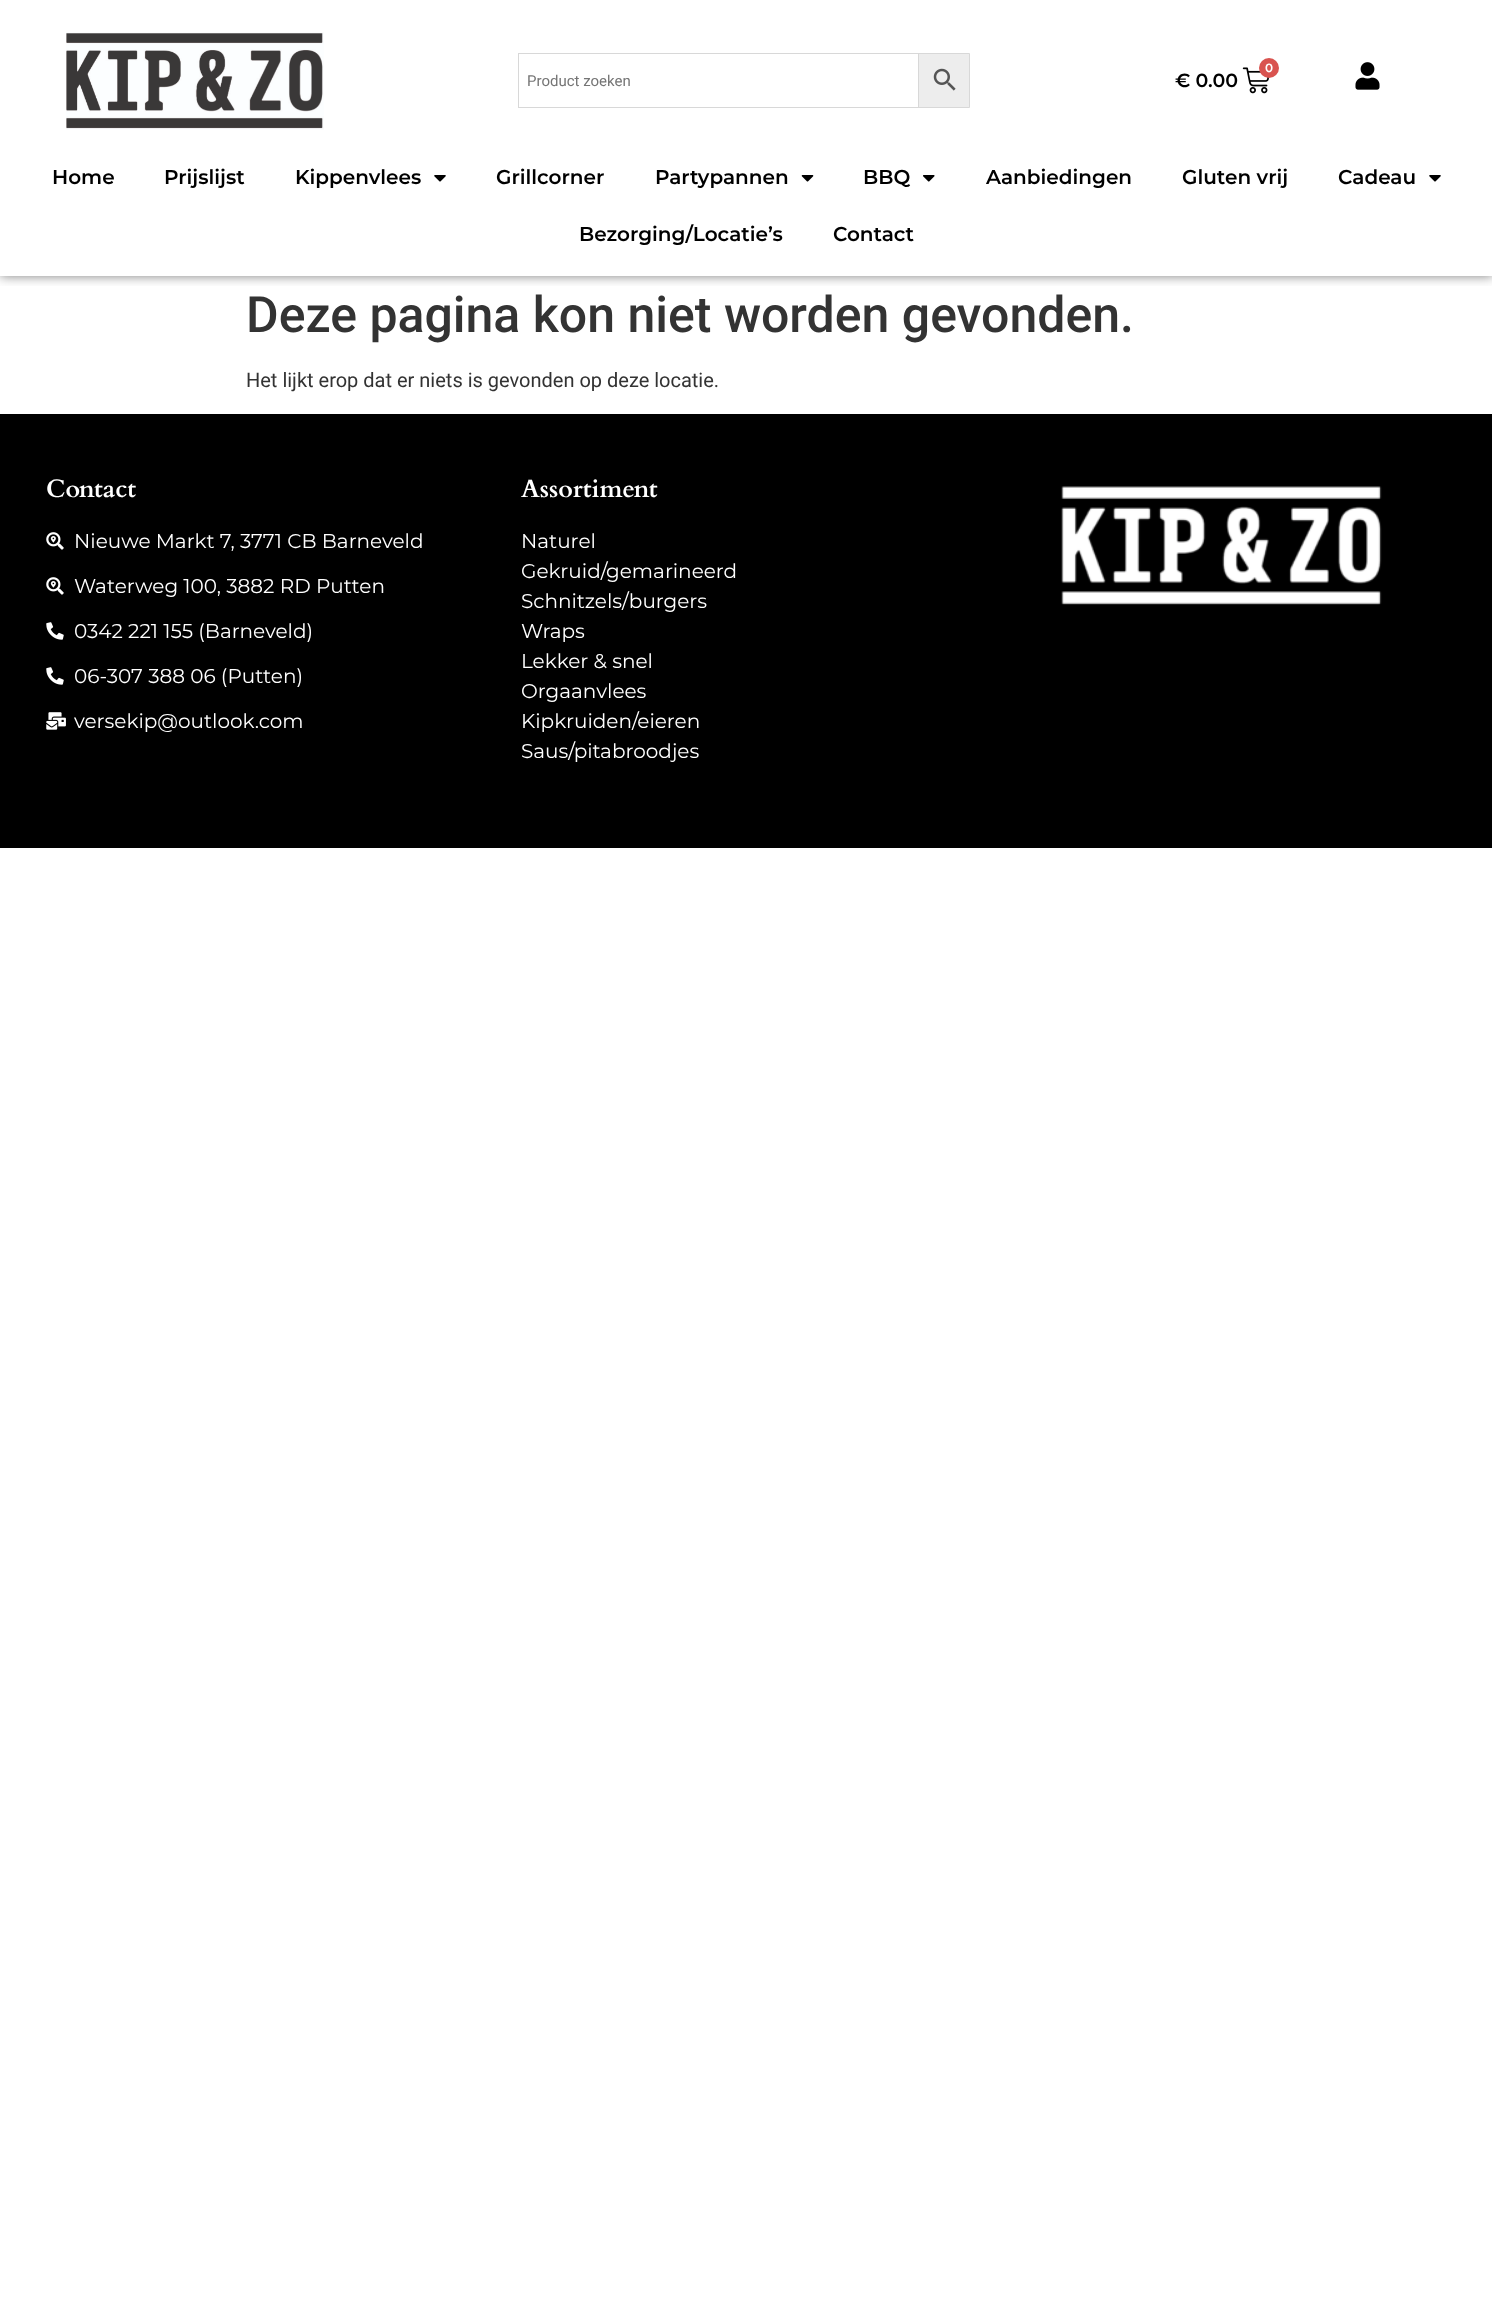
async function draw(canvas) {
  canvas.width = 1492;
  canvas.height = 2324;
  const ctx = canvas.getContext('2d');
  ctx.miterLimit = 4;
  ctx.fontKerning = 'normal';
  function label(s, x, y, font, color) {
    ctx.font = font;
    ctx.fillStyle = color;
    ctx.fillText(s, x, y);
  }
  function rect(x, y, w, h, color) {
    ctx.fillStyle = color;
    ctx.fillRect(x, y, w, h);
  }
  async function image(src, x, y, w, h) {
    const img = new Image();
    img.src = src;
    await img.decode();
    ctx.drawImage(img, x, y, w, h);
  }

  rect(0, 0, 1492, 2324, '#fff');
  ctx.save();
  ctx.beginPath();
  ctx.rect(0, 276, 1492, 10);
  ctx.clip();
  ctx.fillStyle = '#00000080';
  ctx.filter = 'blur(6px)';
  ctx.beginPath();
  ctx.rect(0, 0, 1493, 276);
  ctx.fill();
  ctx.filter = 'none';
  ctx.restore();
  await image('assets/img1.png', 66, 32, 258, 98);
  ctx.fillStyle = '#ededed';
  ctx.beginPath();
  ctx.rect(918.5, 53.5, 51, 54);
  ctx.fill();
  ctx.strokeStyle = '#d8d8d8';
  ctx.stroke();
  ctx.strokeRect(518.5, 53.5, 400, 54);
  label('Product zoeken', 527, 86, '15px Roboto', '#757575');
  await image('assets/img2.png', 933, 68, 23, 23);
  await image('assets/img3.png', 1242, 67, 27, 27);
  ctx.fillStyle = '#d9534f';
  ctx.beginPath();
  ctx.arc(1269, 68, 10, 0, 2 * Math.PI);
  ctx.fill();
  label('0', 1265, 72, '600 12px Montserrat', '#fff');
  label('€ 0.00', 1175, 87, '600 19px Montserrat', '#000');
  await image('assets/img4.png', 1355, 62, 25, 28);
  label('Home', 52, 184, '600 20px Montserrat', '#000');
  label('Prijslijst', 164, 184, '600 20px Montserrat', '#000');
  label('Kippenvlees', 295, 184, '600 20px Montserrat', '#000');
  await image('assets/img5.png', 434, 175, 12, 7);
  label('Grillcorner', 496, 184, '600 20px Montserrat', '#000');
  label('Partypannen', 655, 184, '600 20px Montserrat', '#000');
  await image('assets/img6.png', 801, 175, 13, 7);
  label('BBQ', 863, 184, '600 20px Montserrat', '#000');
  await image('assets/img7.png', 923, 175, 12, 7);
  label('Aanbiedingen', 986, 184, '600 20px Montserrat', '#000');
  label('Gluten vrij', 1182, 184, '600 20px Montserrat', '#000');
  label('Cadeau', 1338, 184, '600 20px Montserrat', '#000');
  await image('assets/img5.png', 1429, 175, 12, 7);
  label('Bezorging/Locatie’s', 579, 241, '600 20px Montserrat', '#000');
  label('Contact', 833, 241, '600 20px Montserrat', '#000');
  label('Deze pagina kon niet worden gevonden.', 246, 332, '500 50px Roboto', '#333');
  label('Het lijkt erop dat er niets is gevonden op deze locatie.', 246, 387, '20px Roboto', '#333');
  rect(0, 414, 1492, 434, '#000');
  label('Contact', 46, 497, 'bold 25px Cardo', '#fff');
  await image('assets/img8.png', 46, 532, 18, 18);
  label('Nieuwe Markt 7, 3771 CB Barneveld', 74, 548, '20px Montserrat', '#fff');
  await image('assets/img8.png', 46, 577, 18, 18);
  label('Waterweg 100, 3882 RD Putten', 74, 593, '20px Montserrat', '#fff');
  await image('assets/img9.png', 46, 622, 18, 18);
  label('0342 221 155 (Barneveld)', 74, 638, '20px Montserrat', '#fff');
  await image('assets/img9.png', 46, 667, 18, 18);
  label('06-307 388 06 (Putten)', 74, 683, '20px Montserrat', '#fff');
  await image('assets/img10.png', 46, 712, 20, 18);
  label('versekip@outlook.com', 74, 728, '20px Montserrat', '#fff');
  label('Assortiment', 521, 497, 'bold 25px Cardo', '#fff');
  label('Naturel', 521, 548, '20px Montserrat', '#fff');
  label('Gekruid/gemarineerd', 521, 578, '20px Montserrat', '#fff');
  label('Schnitzels/burgers', 521, 608, '20px Montserrat', '#fff');
  label('Wraps', 521, 638, '20px Montserrat', '#fff');
  label('Lekker & snel', 521, 668, '20px Montserrat', '#fff');
  label('Orgaanvlees', 521, 698, '20px Montserrat', '#fff');
  label('Kipkruiden/eieren', 521, 728, '20px Montserrat', '#fff');
  label('Saus/pitabroodjes', 521, 758, '20px Montserrat', '#fff');
  await image('assets/img11.png', 1061, 486, 321, 119);
}

draw(document.querySelector('canvas'));
